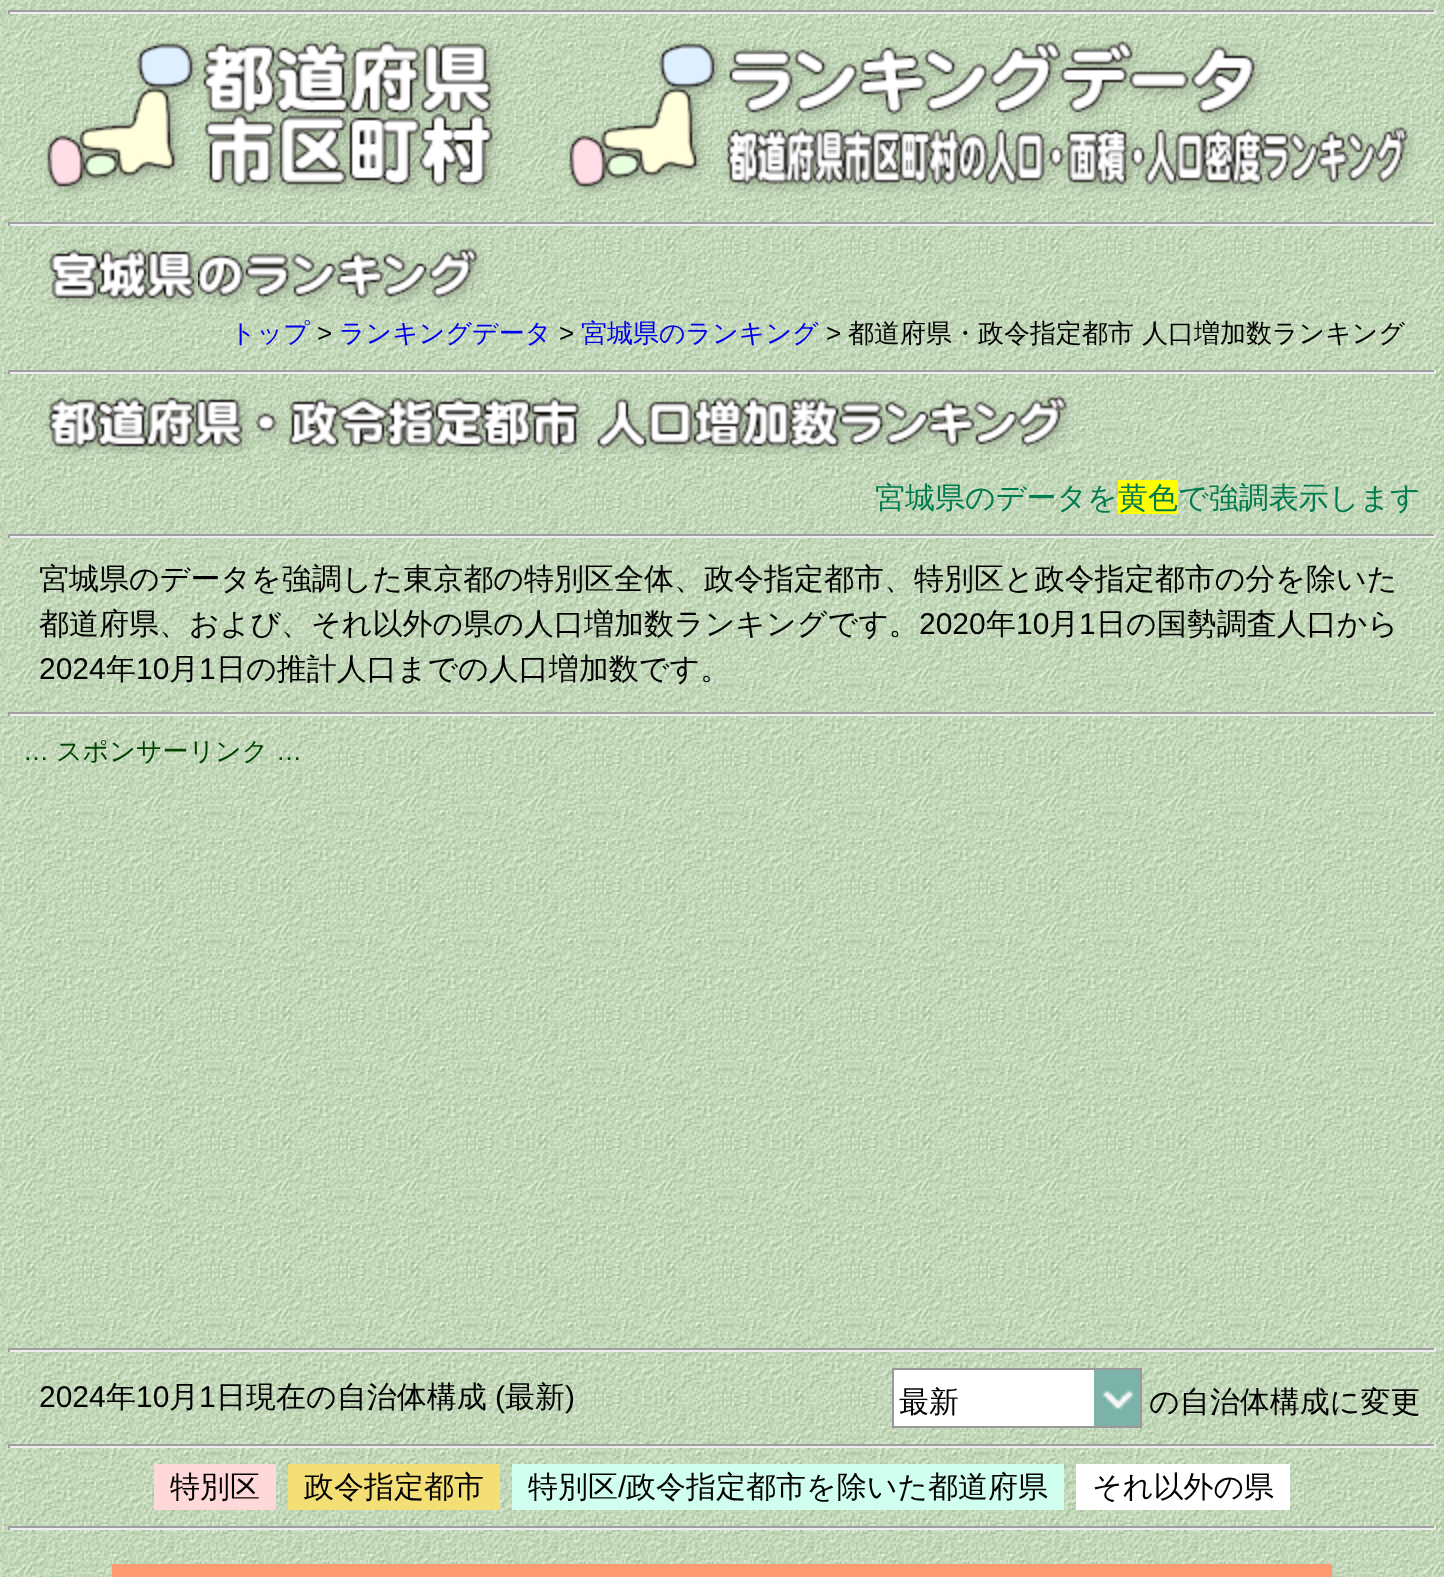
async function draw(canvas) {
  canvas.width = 1444;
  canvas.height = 1577;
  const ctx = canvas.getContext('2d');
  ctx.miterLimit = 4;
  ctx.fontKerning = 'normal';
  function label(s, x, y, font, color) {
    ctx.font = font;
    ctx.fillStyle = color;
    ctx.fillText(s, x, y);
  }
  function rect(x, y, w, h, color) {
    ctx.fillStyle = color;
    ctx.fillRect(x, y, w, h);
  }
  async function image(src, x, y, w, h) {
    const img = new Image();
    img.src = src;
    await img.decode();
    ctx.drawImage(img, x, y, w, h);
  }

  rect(0, 0, 1444, 1577, '#fff');
  await image('assets/img1.png', 0, 0, 1444, 1577);
  rect(8, 10, 1428, 2, '#9f9f9f');
  rect(1434, 10, 2, 4, '#eee');
  rect(8, 12, 1428, 2, '#eee');
  rect(8, 10, 2, 4, '#9f9f9f');
  await image('assets/img2.png', 45, 41, 456, 155);
  await image('assets/img3.png', 567, 41, 848, 155);
  rect(8, 222, 1428, 2, '#9f9f9f');
  rect(1434, 222, 2, 4, '#eee');
  rect(8, 224, 1428, 2, '#eee');
  rect(8, 222, 2, 4, '#9f9f9f');
  await image('assets/img4.png', 40, 242, 158, 64);
  await image('assets/img5.png', 198, 242, 286, 64);
  label('トップ', 230, 342, '500 26px WenQuanYi Zen Hei', '#00e');
  label('>', 317, 342, '26px Liberation Sans', '#000');
  label('ランキングデータ', 339, 342, '500 26px WenQuanYi Zen Hei', '#00e');
  label('>', 559, 342, '26px Liberation Sans', '#000');
  label('宮城県のランキング', 581, 342, '500 26px WenQuanYi Zen Hei', '#00e');
  label('>', 826, 342, '26px Liberation Sans', '#000');
  label('都道府県・政令指定都市', 848, 342, '500 26px WenQuanYi Zen Hei', '#000');
  label('人口増加数ランキング', 1142, 342, '500 26px WenQuanYi Zen Hei', '#000');
  rect(8, 370, 1428, 2, '#9f9f9f');
  rect(1434, 370, 2, 4, '#eee');
  rect(8, 372, 1428, 2, '#eee');
  rect(8, 370, 2, 4, '#9f9f9f');
  await image('assets/img6.png', 40, 390, 548, 64);
  await image('assets/img7.png', 588, 390, 486, 64);
  label('宮城県のデータを', 875, 508, '500 30px WenQuanYi Zen Hei', '#007b50');
  rect(1118, 480, 60, 34, '#ff0');
  label('黄色で強調表示します', 1118, 508, '500 30px WenQuanYi Zen Hei', '#007b50');
  rect(8, 534, 1428, 2, '#9f9f9f');
  rect(1434, 534, 2, 4, '#eee');
  rect(8, 536, 1428, 2, '#eee');
  rect(8, 534, 2, 4, '#9f9f9f');
  label('宮城県のデータを強調した東京都の特別区全体、政令指定都市、特別区と政令指定都市の分を除いた', 39, 589, '500 30px WenQuanYi Zen Hei', '#000');
  label('都道府県、および、それ以外の県の人口増加数ランキングです。', 39, 634, '500 30px WenQuanYi Zen Hei', '#000');
  label('2020', 919, 634, '30px Liberation Sans', '#000');
  label('年', 986, 634, '500 30px WenQuanYi Zen Hei', '#000');
  label('10', 1016, 634, '30px Liberation Sans', '#000');
  label('月', 1049, 634, '500 30px WenQuanYi Zen Hei', '#000');
  label('1', 1079, 634, '30px Liberation Sans', '#000');
  label('日の国勢調査人口から', 1096, 634, '500 30px WenQuanYi Zen Hei', '#000');
  label('2024', 39, 679, '30px Liberation Sans', '#000');
  label('年', 106, 679, '500 30px WenQuanYi Zen Hei', '#000');
  label('10', 136, 679, '30px Liberation Sans', '#000');
  label('月', 169, 679, '500 30px WenQuanYi Zen Hei', '#000');
  label('1', 199, 679, '30px Liberation Sans', '#000');
  label('日の推計人口までの人口増加数です。', 216, 679, '500 30px WenQuanYi Zen Hei', '#000');
  rect(8, 712, 1428, 2, '#9f9f9f');
  rect(1434, 712, 2, 4, '#eee');
  rect(8, 714, 1428, 2, '#eee');
  rect(8, 712, 2, 4, '#9f9f9f');
  label('…', 23, 760, '26px Liberation Sans', '#040');
  label('スポンサーリンク', 56, 760, '500 26px WenQuanYi Zen Hei', '#040');
  label('…', 276, 760, '26px Liberation Sans', '#040');
  rect(8, 1348, 1428, 2, '#9f9f9f');
  rect(1434, 1348, 2, 4, '#eee');
  rect(8, 1350, 1428, 2, '#eee');
  rect(8, 1348, 2, 4, '#9f9f9f');
  label('2024', 39, 1407, '30px Liberation Sans', '#000');
  label('年', 106, 1407, '500 30px WenQuanYi Zen Hei', '#000');
  label('10', 136, 1407, '30px Liberation Sans', '#000');
  label('月', 169, 1407, '500 30px WenQuanYi Zen Hei', '#000');
  label('1', 199, 1407, '30px Liberation Sans', '#000');
  label('日現在の自治体構成', 216, 1407, '500 30px WenQuanYi Zen Hei', '#000');
  label('(', 495, 1407, '30px Liberation Sans', '#000');
  label('最新', 505, 1407, '500 30px WenQuanYi Zen Hei', '#000');
  label(')', 565, 1407, '30px Liberation Sans', '#000');
  rect(894, 1370, 200, 56, '#fff');
  await image('assets/img8.png', 1094, 1370, 46, 56);
  ctx.strokeStyle = '#999';
  ctx.lineWidth = 2;
  ctx.strokeRect(893, 1369, 248, 58);
  label('最新', 899, 1412, '500 30px WenQuanYi Zen Hei', '#000');
  label('の自治体構成に変更', 1149, 1412, '500 30px WenQuanYi Zen Hei', '#000');
  rect(8, 1444, 1428, 2, '#9f9f9f');
  rect(1434, 1444, 2, 4, '#eee');
  rect(8, 1446, 1428, 2, '#eee');
  rect(8, 1444, 2, 4, '#9f9f9f');
  rect(154, 1464, 122, 46, '#ffd9d9');
  label('特別区', 170, 1497, '500 30px WenQuanYi Zen Hei', '#000');
  rect(288, 1464, 212, 46, '#f4df77');
  label('政令指定都市', 304, 1497, '500 30px WenQuanYi Zen Hei', '#000');
  rect(512, 1464, 552, 46, '#d0fff0');
  label('特別区', 528, 1497, '500 30px WenQuanYi Zen Hei', '#000');
  label('/', 618, 1497, '30px Liberation Sans', '#000');
  label('政令指定都市を除いた都道府県', 626, 1497, '500 30px WenQuanYi Zen Hei', '#000');
  rect(1076, 1464, 214, 46, '#fff');
  label('それ以外の県', 1092, 1497, '500 30px WenQuanYi Zen Hei', '#000');
  rect(8, 1526, 1428, 2, '#9f9f9f');
  rect(1434, 1526, 2, 4, '#eee');
  rect(8, 1528, 1428, 2, '#eee');
  rect(8, 1526, 2, 4, '#9f9f9f');
  rect(112, 1564, 1220, 13, '#fe9972');
}

draw(document.querySelector('canvas'));
